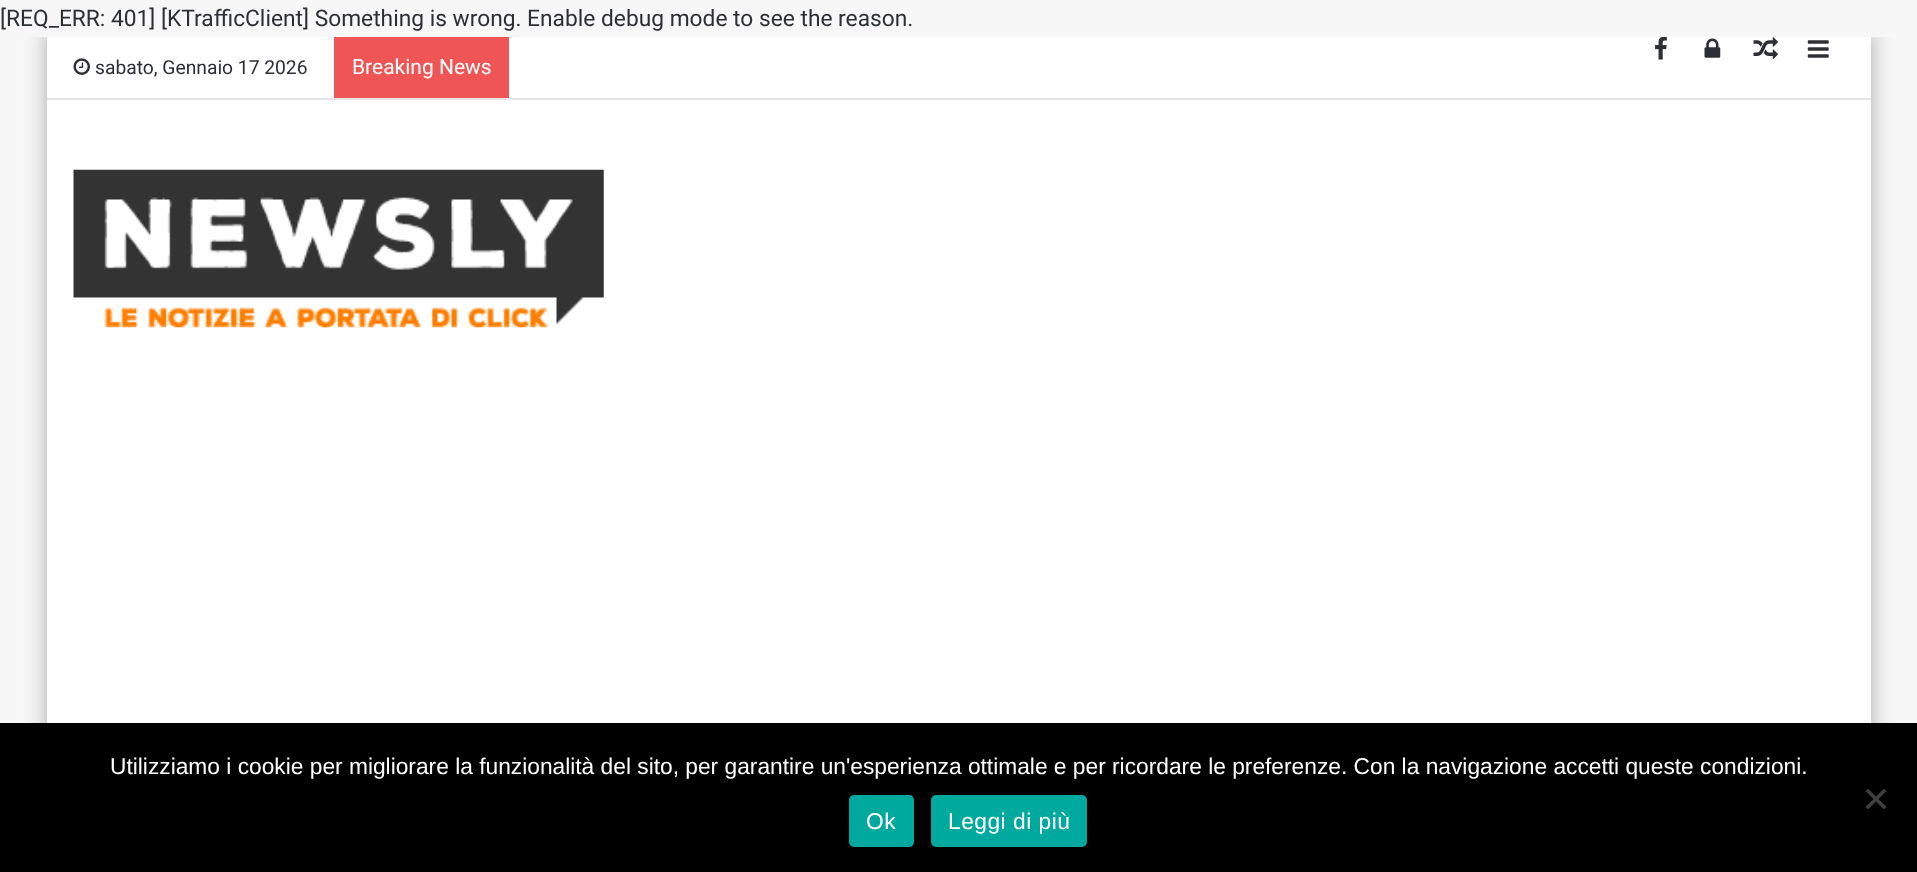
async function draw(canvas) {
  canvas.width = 1917;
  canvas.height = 872;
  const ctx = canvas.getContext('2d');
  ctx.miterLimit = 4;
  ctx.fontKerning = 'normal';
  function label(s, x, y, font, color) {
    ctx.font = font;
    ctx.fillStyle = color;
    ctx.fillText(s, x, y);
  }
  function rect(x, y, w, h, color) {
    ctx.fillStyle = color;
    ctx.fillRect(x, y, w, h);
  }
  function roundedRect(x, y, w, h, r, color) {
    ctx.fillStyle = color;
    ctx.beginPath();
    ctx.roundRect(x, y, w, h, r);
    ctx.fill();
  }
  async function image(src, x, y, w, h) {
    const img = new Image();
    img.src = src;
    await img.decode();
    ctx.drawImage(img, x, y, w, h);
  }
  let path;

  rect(0, 0, 1917, 872, '#f7f7f7');
  label('[REQ_ERR: 401] [KTrafficClient] Something is wrong. Enable debug mode to see the reason.', 0, 26, '22.75px Roboto', '#2c2f34');
  ctx.save();
  ctx.beginPath();
  ctx.rect(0, 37, 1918, 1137);
  ctx.clip();
  ctx.fillStyle = '#ababab80';
  ctx.filter = 'blur(6px)';
  ctx.beginPath();
  ctx.rect(47, 39, 1824, 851);
  ctx.fill();
  ctx.filter = 'none';
  ctx.fillStyle = '#0000001a';
  ctx.filter = 'blur(9px)';
  ctx.beginPath();
  ctx.rect(39, 28, 1841, 816);
  ctx.fill();
  ctx.filter = 'none';
  ctx.restore();
  rect(47, 37, 1824, 686, '#fff');
  rect(47, 98, 1824, 2, '#e6e6e6');
  await image('assets/img1.png', 1655, 37, 12, 23);
  await image('assets/img2.png', 1704, 38, 17, 20);
  await image('assets/img3.png', 1753, 37, 25, 22);
  await image('assets/img4.png', 1807, 40, 22, 18);
  await image('assets/img5.png', 73, 58, 17, 17);
  label('sabato, Gennaio 17 2026', 95, 74, '19.25px Roboto', '#2c2f34');
  rect(334, 37, 175, 61, '#f05555');
  label('Breaking News', 352, 74, '21px Roboto', '#fff');
  await image('assets/img6.png', 73, 169, 531, 159);
  rect(0, 723, 1917, 149, '#000');
  label('Utilizziamo i cookie per migliorare la funzionalità del sito, per garantire un\'esperienza ottimale e per ricordare le preferenze. Con la navigazione accetti queste condizioni.', 110, 774, '22.75px Liberation Sans', '#fff');
  ctx.fillStyle = '#404040';
  path = new Path2D('M1884 788.5L1886.5 791L1868 809.5L1865.5 807Z');
  ctx.fill(path);
  path = new Path2D('M1865.5 791L1868 788.5L1886.5 807L1884 809.5Z');
  ctx.fill(path);
  roundedRect(849, 795, 65, 52, 5, '#00a99d');
  ctx.letterSpacing = '0.5px';
  label('Ok', 866, 829, '22.75px Liberation Sans', '#fff');
  roundedRect(931, 795, 156, 52, 5, '#00a99d');
  label('Leggi di più', 948, 829, '22.75px Liberation Sans', '#fff');
}

draw(document.querySelector('canvas'));
